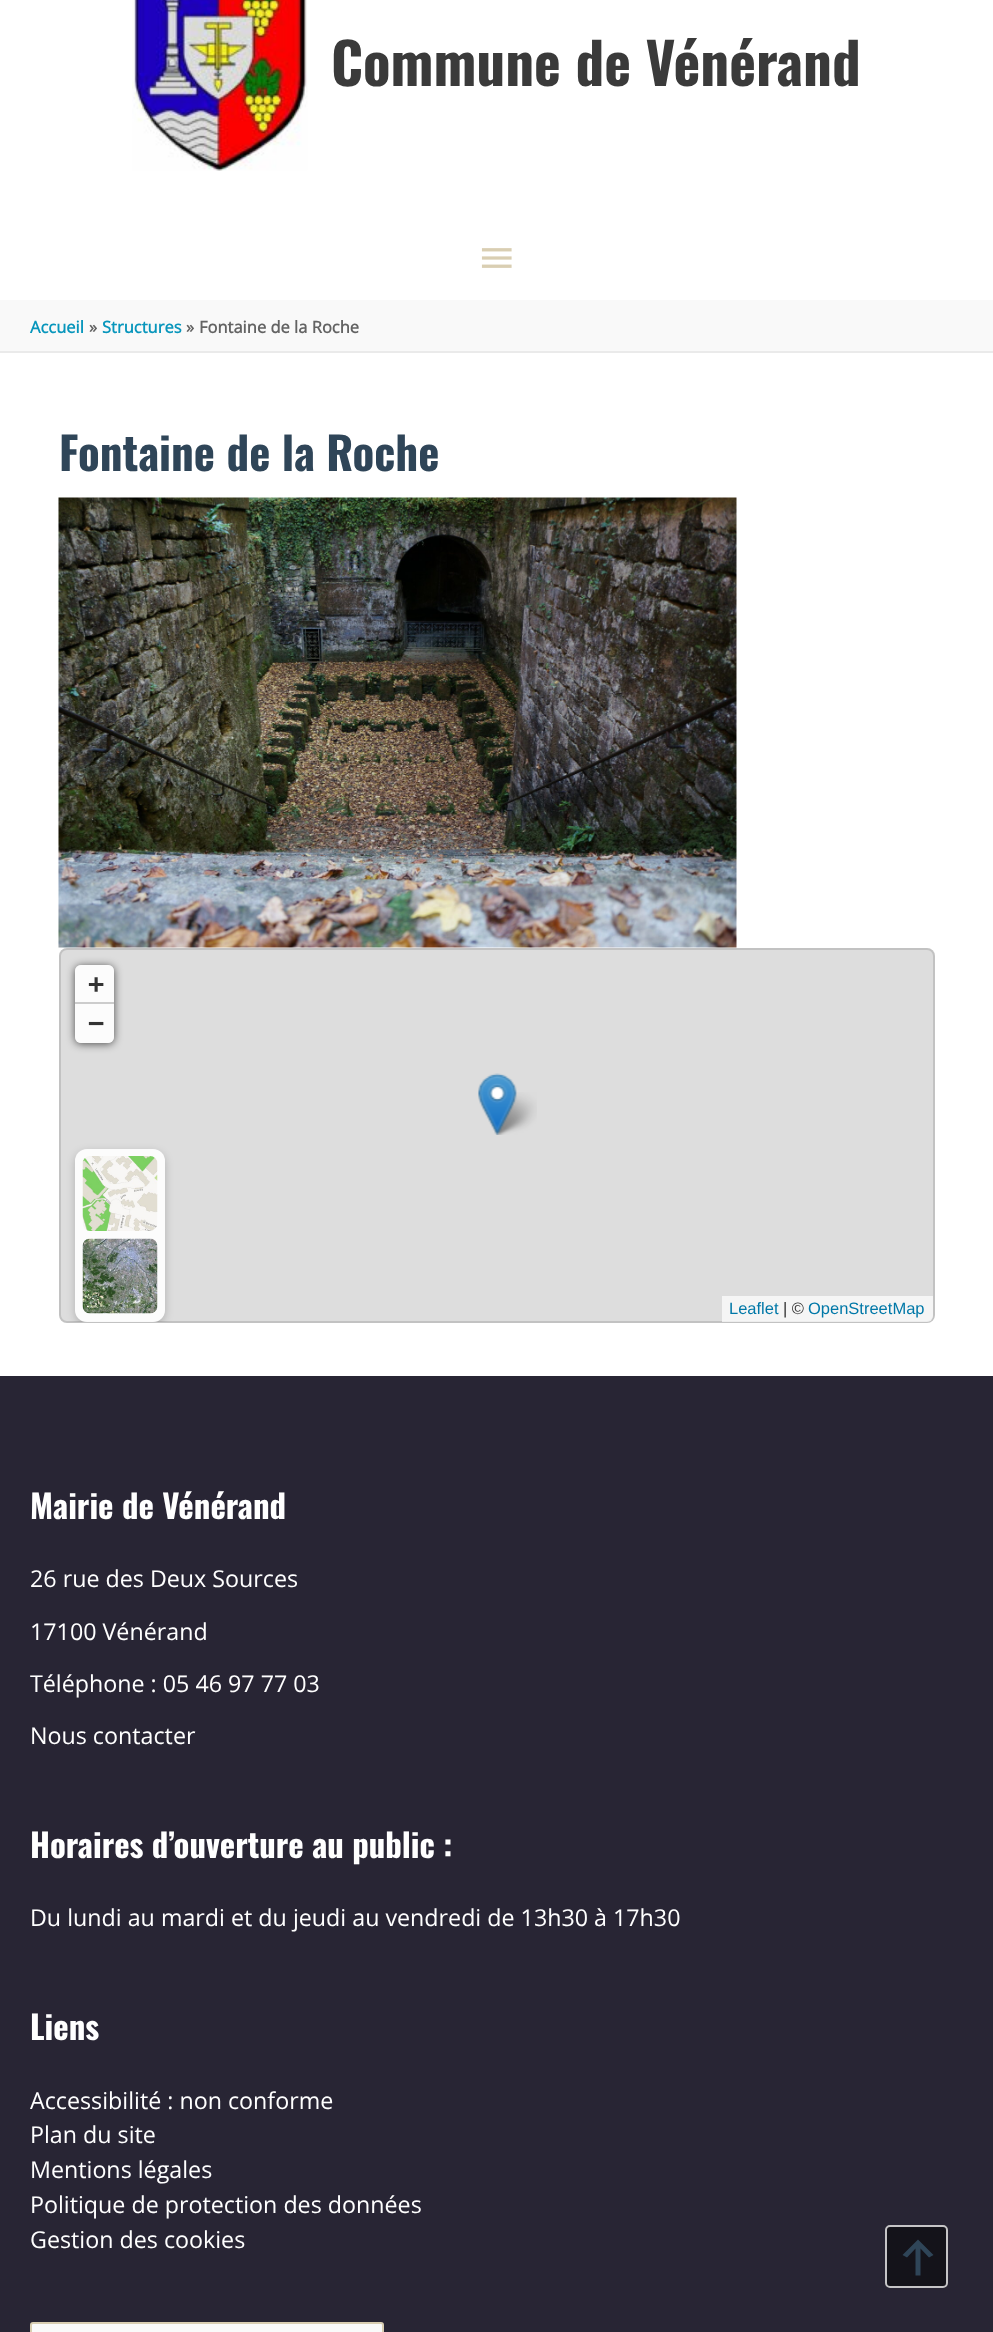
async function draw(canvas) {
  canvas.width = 993;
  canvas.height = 2332;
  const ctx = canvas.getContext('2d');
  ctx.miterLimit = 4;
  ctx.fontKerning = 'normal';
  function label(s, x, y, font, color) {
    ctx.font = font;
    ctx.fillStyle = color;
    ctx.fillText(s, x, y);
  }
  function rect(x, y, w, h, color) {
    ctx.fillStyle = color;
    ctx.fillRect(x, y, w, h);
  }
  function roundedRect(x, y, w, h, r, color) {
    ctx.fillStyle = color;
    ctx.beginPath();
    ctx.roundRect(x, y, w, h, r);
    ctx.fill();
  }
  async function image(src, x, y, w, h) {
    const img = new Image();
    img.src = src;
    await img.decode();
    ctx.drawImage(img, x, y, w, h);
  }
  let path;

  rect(0, 0, 993, 2332, '#fff');
  await image('assets/img1.png', 132, 0, 176, 171);
  label('Commune de Vénérand', 331, 86, 'bold 57px Oswald', '#3a3a3a');
  await image('assets/img2.png', 481, 248, 31, 20);
  rect(0, 300, 993, 51, '#f9f9f9');
  rect(0, 351, 993, 2, '#eaeaea');
  label('Accueil', 30, 333, 'bold 16.5px Open Sans', '#0896bc');
  label('»', 89, 333, 'bold 16.5px Open Sans', '#636363');
  label('Structures', 102, 333, 'bold 16.5px Open Sans', '#0896bc');
  label('»', 186, 333, 'bold 16.5px Open Sans', '#636363');
  label('Fontaine de la Roche', 199, 333, 'bold 16.5px Open Sans', '#636363');
  label('Fontaine de la Roche', 59, 471, 'bold 45px Oswald', '#2f4558');
  await image('assets/img3.png', 58, 497, 679, 451);
  roundedRect(59, 948, 876, 375, 8, '#ddd');
  ctx.beginPath();
  ctx.roundRect(60, 949, 874, 373, 7);
  ctx.strokeStyle = '#0000001f';
  ctx.lineWidth = 2;
  ctx.stroke();
  ctx.save();
  path = new Path2D('M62 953H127V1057H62ZM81 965H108C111.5 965 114 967.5 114 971V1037C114 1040.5 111.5 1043 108 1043H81C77.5 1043 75 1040.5 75 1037V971C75 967.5 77.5 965 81 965Z');
  ctx.clip(path, 'evenodd');
  ctx.fillStyle = '#000000a6';
  ctx.filter = 'blur(4px)';
  ctx.beginPath();
  ctx.roundRect(75, 966, 39, 78, 6);
  ctx.fill();
  ctx.filter = 'none';
  ctx.restore();
  roundedRect(75, 965, 39, 78, 6, '#ffffffe6');
  rect(75, 1002, 39, 2, '#ccc');
  label('+', 88, 993, 'bold 27px DejaVu Sans Mono', '#333');
  label('−', 88, 1032, 'bold 27px DejaVu Sans Mono', '#333');
  ctx.save();
  ctx.beginPath();
  ctx.roundRect(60, 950, 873, 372, 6);
  ctx.clip();
  path = new Path2D('M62 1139H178V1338H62ZM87 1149H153C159.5 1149 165 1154.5 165 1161V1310C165 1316.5 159.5 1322 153 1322H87C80.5 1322 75 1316.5 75 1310V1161C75 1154.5 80.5 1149 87 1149Z');
  ctx.clip(path, 'evenodd');
  ctx.fillStyle = '#00000033';
  ctx.filter = 'blur(4px)';
  ctx.beginPath();
  ctx.roundRect(75, 1152, 90, 173, 12);
  ctx.fill();
  ctx.filter = 'none';
  ctx.restore();
  roundedRect(75, 1149, 90, 173, 12, '#ffffffe6');
  await image('assets/img4.png', 82, 1156, 76, 75);
  await image('assets/img5.png', 82, 1238, 76, 76);
  ctx.fillStyle = '#ffffffb3';
  ctx.beginPath();
  ctx.roundRect(722, 1296, 211, 26, [0, 0, 6, 0]);
  ctx.fill();
  label('Leaflet', 729, 1314, '16.5px Liberation Sans', '#0078a8');
  label('| ©', 783, 1314, '16.5px Liberation Sans', '#333');
  label('OpenStreetMap', 808, 1314, '16.5px Liberation Sans', '#0078a8');
  await image('assets/img7.png', 492, 1092, 45, 43);
  await image('assets/img6.png', 478, 1073, 39, 62);
  rect(0, 1376, 993, 956, '#282534');
  roundedRect(885, 2225, 63, 63, 5, '#14131a');
  ctx.beginPath();
  ctx.roundRect(886, 2226, 61, 61, 4);
  ctx.strokeStyle = '#f2f2f2cc';
  ctx.stroke();
  ctx.fillStyle = '#2f4558';
  path = new Path2D('M920.5 2275.5H915.5V2248.5L907 2257.5L902.5 2255L918 2239.5L933.5 2255L929 2257.5L920.5 2248.5Z');
  ctx.fill(path);
  label('Mairie de Vénérand', 30, 1519, 'bold 32.8px Oswald', '#fff');
  label('26 rue des Deux Sources', 30, 1587, '23.25px Open Sans', '#fff');
  label('17100 Vénérand', 30, 1640, '23.25px Open Sans', '#fff');
  label('Téléphone : 05 46 97 77 03', 30, 1692, '23.25px Open Sans', '#fff');
  label('Nous contacter', 30, 1744, '23.25px Open Sans', '#fff');
  label('Horaires d’ouverture au public :', 30, 1858, 'bold 32.8px Oswald', '#fff');
  label('Du lundi au mardi et du jeudi au vendredi de 13h30 à 17h30', 30, 1926, '23.25px Open Sans', '#fff');
  label('Liens', 30, 2040, 'bold 32.8px Oswald', '#fff');
  label('Accessibilité : non conforme', 30, 2109, '23.25px Open Sans', '#fff');
  label('Plan du site', 30, 2143, '23.25px Open Sans', '#fff');
  label('Mentions légales', 30, 2178, '23.25px Open Sans', '#fff');
  label('Politique de protection des données', 30, 2213, '23.25px Open Sans', '#fff');
  label('Gestion des cookies', 30, 2248, '23.25px Open Sans', '#fff');
  ctx.fillStyle = '#fafafa';
  ctx.beginPath();
  ctx.roundRect(31, 2323, 352, 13, 2);
  ctx.fill();
  ctx.strokeStyle = '#d9ceb2';
  ctx.stroke();
}

draw(document.querySelector('canvas'));
